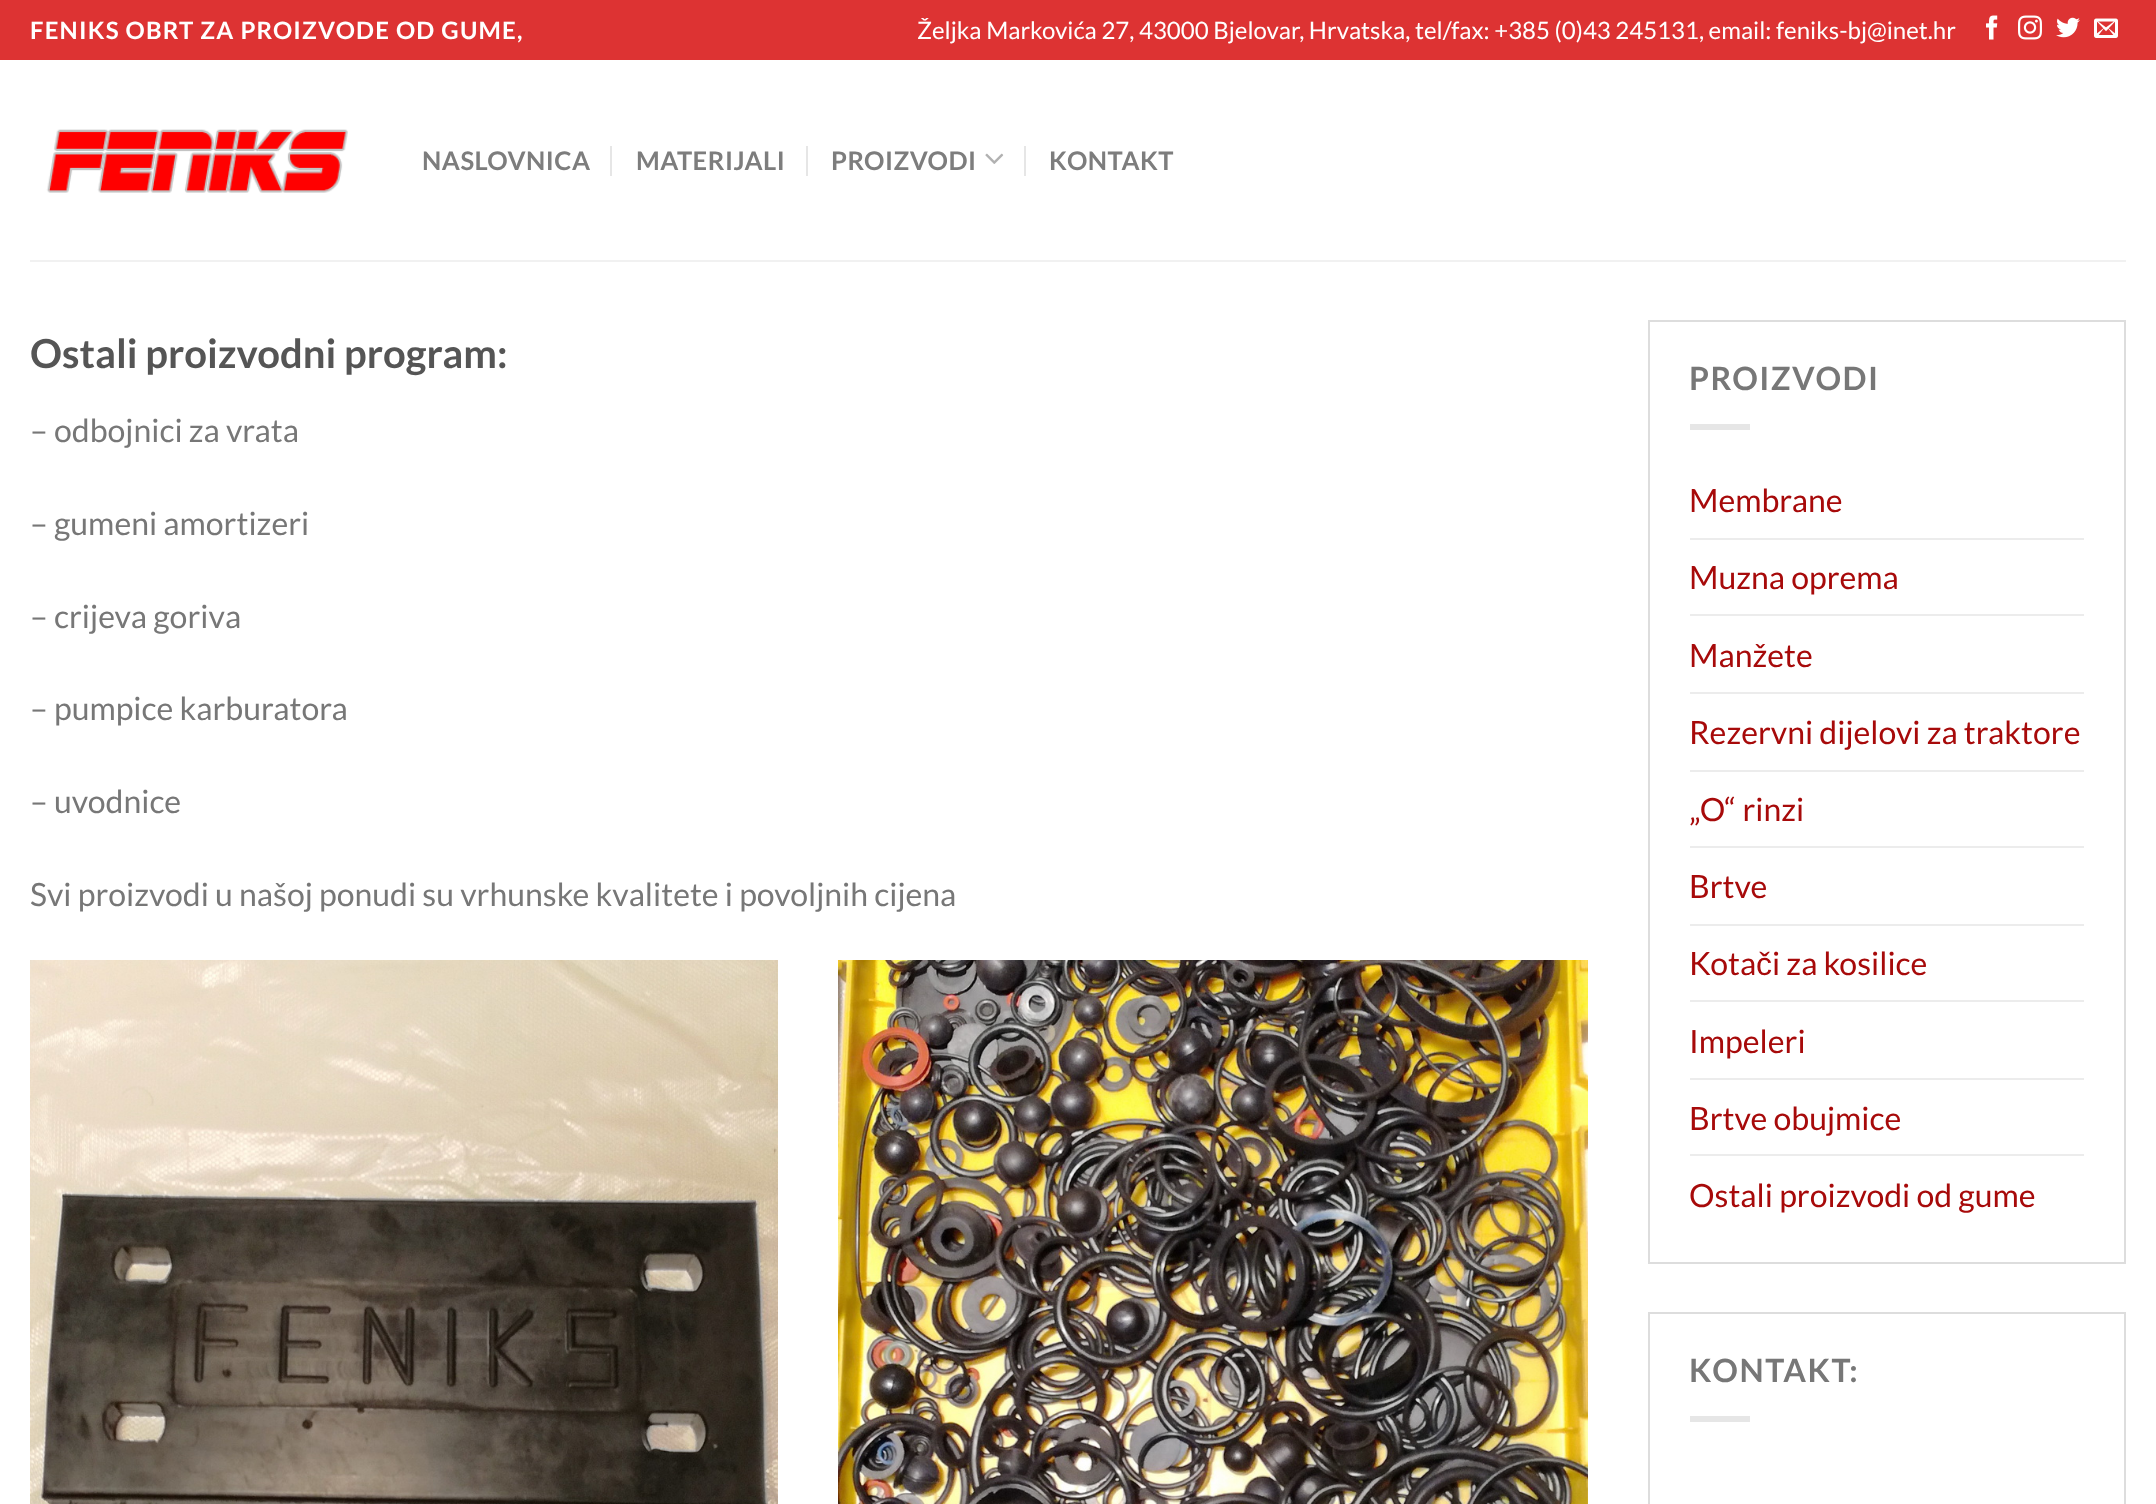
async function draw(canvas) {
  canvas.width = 2156;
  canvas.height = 1504;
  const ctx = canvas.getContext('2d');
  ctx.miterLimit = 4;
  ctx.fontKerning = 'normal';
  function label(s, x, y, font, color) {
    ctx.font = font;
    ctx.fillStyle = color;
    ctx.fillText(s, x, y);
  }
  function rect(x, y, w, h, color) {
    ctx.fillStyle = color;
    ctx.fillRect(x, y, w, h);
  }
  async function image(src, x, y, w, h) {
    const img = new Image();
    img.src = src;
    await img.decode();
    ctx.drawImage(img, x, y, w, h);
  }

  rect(0, 0, 2156, 1504, '#fff');
  rect(0, 0, 2156, 60, '#d33');
  ctx.letterSpacing = '1.2px';
  label('FENIKS OBRT ZA PROIZVODE OD GUME,', 30, 39, 'bold 24px Lato', '#fff');
  ctx.letterSpacing = '0px';
  label('Željka Markovića 27, 43000 Bjelovar, Hrvatska, tel/fax: +385 (0)43 245131, email: feniks-bj@inet.hr', 917, 39, '24px Lato', '#fff');
  await image('assets/img1.png', 1986, 15, 12, 25);
  await image('assets/img2.png', 2018, 15, 24, 25);
  await image('assets/img3.png', 2056, 17, 24, 21);
  await image('assets/img4.png', 2094, 18, 24, 20);
  await image('assets/img5.png', 46, 129, 302, 64);
  ctx.letterSpacing = '0.5px';
  label('NASLOVNICA', 422, 170, 'bold 25.5px Lato', '#7d7d7d');
  rect(610, 146, 2, 30, '#e6e6e6');
  label('MATERIJALI', 636, 170, 'bold 25.5px Lato', '#7d7d7d');
  rect(806, 146, 2, 30, '#e6e6e6');
  label('PROIZVODI', 831, 170, 'bold 25.5px Lato', '#7d7d7d');
  await image('assets/img6.png', 985, 153, 19, 11);
  rect(1024, 146, 2, 30, '#e6e6e6');
  label('KONTAKT', 1049, 170, 'bold 25.5px Lato', '#7d7d7d');
  rect(30, 260, 2096, 2, '#f1f1f1');
  ctx.letterSpacing = '0px';
  label('Ostali proizvodni program:', 30, 368, 'bold 40px Lato', '#555');
  label('– odbojnici za vrata', 30, 442, '32px Lato', '#777');
  label('– gumeni amortizeri', 30, 535, '32px Lato', '#777');
  label('– crijeva goriva', 30, 628, '32px Lato', '#777');
  label('– pumpice karburatora', 30, 720, '32px Lato', '#777');
  label('– uvodnice', 30, 813, '32px Lato', '#777');
  label('Svi proizvodi u našoj ponudi su vrhunske kvalitete i povoljnih cijena', 30, 906, '32px Lato', '#777');
  await image('assets/img7.png', 30, 960, 748, 544);
  await image('assets/img8.png', 838, 960, 750, 544);
  ctx.strokeStyle = '#ddd';
  ctx.lineWidth = 2;
  ctx.strokeRect(1649, 321, 476, 942);
  ctx.letterSpacing = '1.5px';
  label('PROIZVODI', 1689, 390, 'bold 32px Lato', '#777');
  rect(1690, 424, 60, 6, '#e6e6e6');
  ctx.letterSpacing = '0px';
  label('Membrane', 1689, 512, '32px Lato', '#a70a0a');
  rect(1690, 538, 394, 2, '#ececec');
  label('Muzna oprema', 1689, 589, '32px Lato', '#a70a0a');
  rect(1690, 614, 394, 2, '#ececec');
  label('Manžete', 1689, 667, '32px Lato', '#a70a0a');
  rect(1690, 692, 394, 2, '#ececec');
  label('Rezervni dijelovi za traktore', 1689, 744, '32px Lato', '#a70a0a');
  rect(1690, 770, 394, 2, '#ececec');
  label('„O“ rinzi', 1689, 821, '32px Lato', '#a70a0a');
  rect(1690, 846, 394, 2, '#ececec');
  label('Brtve', 1689, 898, '32px Lato', '#a70a0a');
  rect(1690, 924, 394, 2, '#ececec');
  label('Kota', 1689, 975, '32px Lato', '#a70a0a');
  label('č', 1756, 975, '32px Liberation Sans', '#a70a0a');
  label('i za kosilice', 1772, 975, '32px Lato', '#a70a0a');
  rect(1690, 1000, 394, 2, '#ececec');
  label('Impeleri', 1689, 1053, '32px Lato', '#a70a0a');
  rect(1690, 1078, 394, 2, '#ececec');
  label('Brtve obujmice', 1689, 1130, '32px Lato', '#a70a0a');
  rect(1690, 1154, 394, 2, '#ececec');
  label('Ostali proizvodi od gume', 1689, 1207, '32px Lato', '#a70a0a');
  ctx.strokeRect(1649, 1313, 476, 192);
  ctx.letterSpacing = '1.5px';
  label('KONTAKT:', 1689, 1382, 'bold 32px Lato', '#777');
  rect(1690, 1416, 60, 6, '#e6e6e6');
}

draw(document.querySelector('canvas'));
